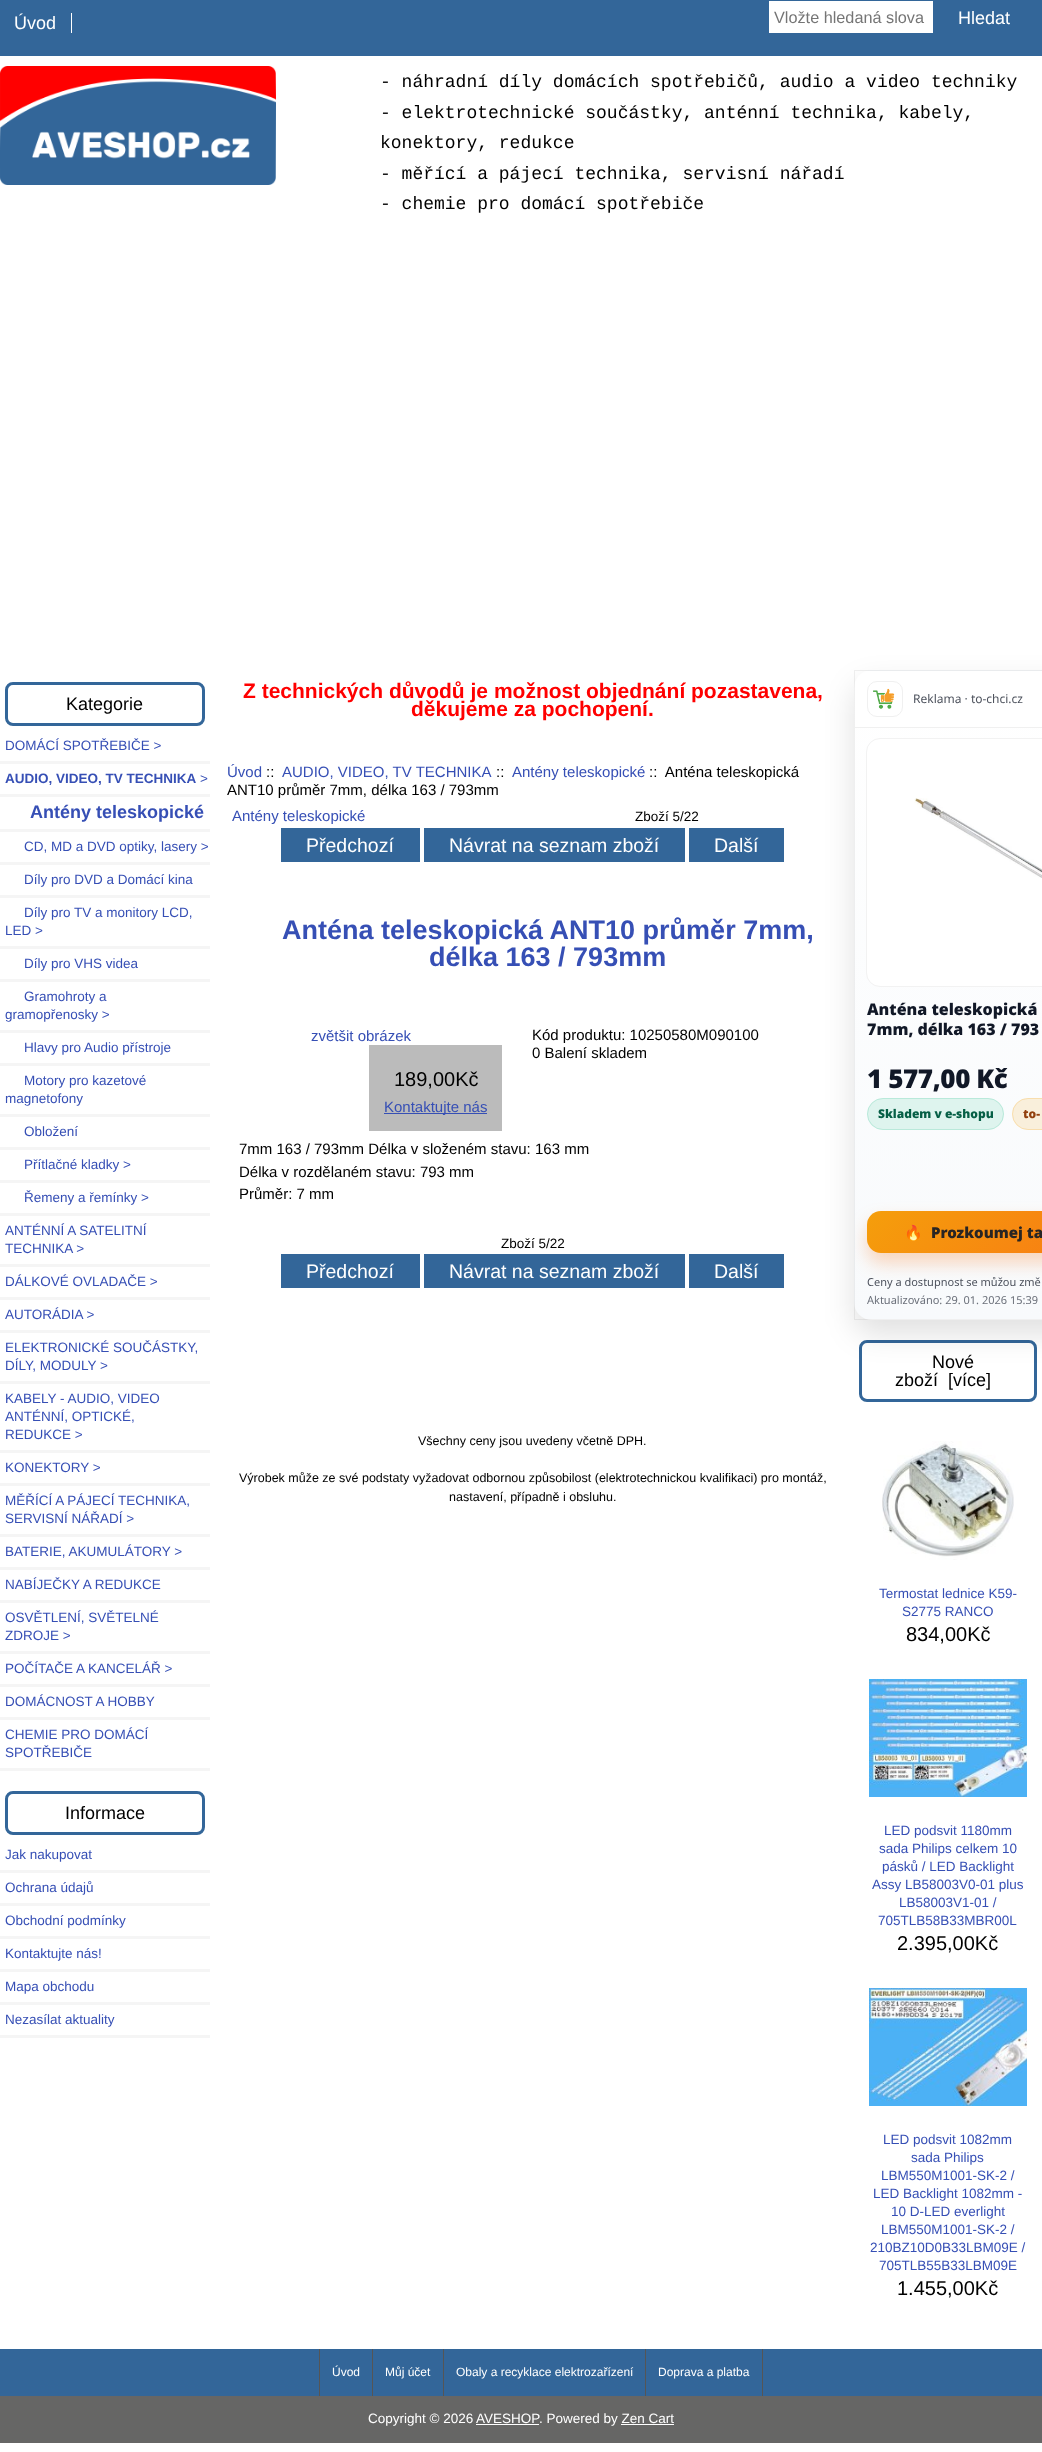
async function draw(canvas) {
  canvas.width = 1042;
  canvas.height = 2452;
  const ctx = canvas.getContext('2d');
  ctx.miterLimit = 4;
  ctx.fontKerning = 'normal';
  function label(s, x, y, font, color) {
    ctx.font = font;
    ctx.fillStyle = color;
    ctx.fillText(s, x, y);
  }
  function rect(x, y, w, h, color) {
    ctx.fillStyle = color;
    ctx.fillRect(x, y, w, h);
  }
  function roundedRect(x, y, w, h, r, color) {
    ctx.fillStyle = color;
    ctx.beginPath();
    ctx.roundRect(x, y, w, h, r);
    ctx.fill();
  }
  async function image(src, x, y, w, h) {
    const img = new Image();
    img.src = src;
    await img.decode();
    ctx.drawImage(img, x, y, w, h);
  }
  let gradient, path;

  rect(0, 0, 1042, 2452, '#fff');
  rect(0, 0, 1042, 56, '#369');
  label('Úvod', 14, 29, '18px Liberation Sans', '#fff');
  rect(71, 13, 1, 20, '#fff');
  rect(769, 1, 164, 32, '#fff');
  label('Vložte hledaná slova', 774, 23, '16.25px Liberation Sans', '#757575');
  label('Hledat', 958, 24, '18px Liberation Sans', '#fff');
  await image('assets/img1.png', 0, 66, 276, 119);
  label('- náhradní díly domácích spotřebičů, audio a video techniky', 380, 87, '18px Liberation Mono', '#000');
  label('- elektrotechnické součástky, anténní technika, kabely,', 380, 118, '18px Liberation Mono', '#000');
  label('konektory, redukce', 380, 148, '18px Liberation Mono', '#000');
  label('- měřící a pájecí technika, servisní nářadí', 380, 179, '18px Liberation Mono', '#000');
  label('- chemie pro domácí spotřebiče', 380, 209, '18px Liberation Mono', '#000');
  ctx.beginPath();
  ctx.roundRect(6.5, 683.5, 197, 41, 6.5);
  ctx.strokeStyle = '#369';
  ctx.lineWidth = 3;
  ctx.stroke();
  label('Kategorie', 66, 710, '18px Liberation Sans', '#000');
  rect(0, 761, 210, 3, '#f5f5f5');
  label('DOMÁCÍ SPOTŘEBIČE >', 5, 750, '13.5px Liberation Sans', '#364fb5');
  rect(0, 794, 210, 3, '#f5f5f5');
  label('AUDIO, VIDEO, TV TECHNIKA', 5, 783, 'bold 13.5px Liberation Sans', '#364fb5');
  label('>', 200, 783, '13.5px Liberation Sans', '#364fb5');
  rect(0, 829, 210, 3, '#f5f5f5');
  label('Antény teleskopické', 30, 818, 'bold 18px Liberation Sans', '#364fb5');
  rect(0, 862, 210, 3, '#f5f5f5');
  label('CD, MD a DVD optiky, lasery >', 24, 851, '13.5px Liberation Sans', '#364fb5');
  rect(0, 895, 210, 3, '#f5f5f5');
  label('Díly pro DVD a Domácí kina', 24, 884, '13.5px Liberation Sans', '#364fb5');
  rect(0, 946, 210, 3, '#f5f5f5');
  label('Díly pro TV a monitory LCD,', 24, 917, '13.5px Liberation Sans', '#364fb5');
  label('LED >', 5, 935, '13.5px Liberation Sans', '#364fb5');
  rect(0, 979, 210, 3, '#f5f5f5');
  label('Díly pro VHS videa', 24, 968, '13.5px Liberation Sans', '#364fb5');
  rect(0, 1030, 210, 3, '#f5f5f5');
  label('Gramohroty a', 24, 1001, '13.5px Liberation Sans', '#364fb5');
  label('gramopřenosky >', 5, 1019, '13.5px Liberation Sans', '#364fb5');
  rect(0, 1063, 210, 3, '#f5f5f5');
  label('Hlavy pro Audio přístroje', 24, 1052, '13.5px Liberation Sans', '#364fb5');
  rect(0, 1114, 210, 3, '#f5f5f5');
  label('Motory pro kazetové', 24, 1085, '13.5px Liberation Sans', '#364fb5');
  label('magnetofony', 5, 1103, '13.5px Liberation Sans', '#364fb5');
  rect(0, 1147, 210, 3, '#f5f5f5');
  label('Obložení', 24, 1136, '13.5px Liberation Sans', '#364fb5');
  rect(0, 1180, 210, 3, '#f5f5f5');
  label('Přítlačné kladky >', 24, 1169, '13.5px Liberation Sans', '#364fb5');
  rect(0, 1213, 210, 3, '#f5f5f5');
  label('Řemeny a řemínky >', 24, 1202, '13.5px Liberation Sans', '#364fb5');
  rect(0, 1264, 210, 3, '#f5f5f5');
  label('ANTÉNNÍ A SATELITNÍ', 5, 1235, '13.5px Liberation Sans', '#364fb5');
  label('TECHNIKA >', 5, 1253, '13.5px Liberation Sans', '#364fb5');
  rect(0, 1297, 210, 3, '#f5f5f5');
  label('DÁLKOVÉ OVLADAČE >', 5, 1286, '13.5px Liberation Sans', '#364fb5');
  rect(0, 1330, 210, 3, '#f5f5f5');
  label('AUTORÁDIA >', 5, 1319, '13.5px Liberation Sans', '#364fb5');
  rect(0, 1381, 210, 3, '#f5f5f5');
  label('ELEKTRONICKÉ SOUČÁSTKY,', 5, 1352, '13.5px Liberation Sans', '#364fb5');
  label('DÍLY, MODULY >', 5, 1370, '13.5px Liberation Sans', '#364fb5');
  rect(0, 1450, 210, 3, '#f5f5f5');
  label('KABELY - AUDIO, VIDEO', 5, 1403, '13.5px Liberation Sans', '#364fb5');
  label('ANTÉNNÍ, OPTICKÉ,', 5, 1421, '13.5px Liberation Sans', '#364fb5');
  label('REDUKCE >', 5, 1439, '13.5px Liberation Sans', '#364fb5');
  rect(0, 1483, 210, 3, '#f5f5f5');
  label('KONEKTORY >', 5, 1472, '13.5px Liberation Sans', '#364fb5');
  rect(0, 1534, 210, 3, '#f5f5f5');
  label('MĚŘÍCÍ A PÁJECÍ TECHNIKA,', 5, 1505, '13.5px Liberation Sans', '#364fb5');
  label('SERVISNÍ NÁŘADÍ >', 5, 1523, '13.5px Liberation Sans', '#364fb5');
  rect(0, 1567, 210, 3, '#f5f5f5');
  label('BATERIE, AKUMULÁTORY >', 5, 1556, '13.5px Liberation Sans', '#364fb5');
  rect(0, 1600, 210, 3, '#f5f5f5');
  label('NABÍJEČKY A REDUKCE', 5, 1589, '13.5px Liberation Sans', '#364fb5');
  rect(0, 1651, 210, 3, '#f5f5f5');
  label('OSVĚTLENÍ, SVĚTELNÉ', 5, 1622, '13.5px Liberation Sans', '#364fb5');
  label('ZDROJE >', 5, 1640, '13.5px Liberation Sans', '#364fb5');
  rect(0, 1684, 210, 3, '#f5f5f5');
  label('POČÍTAČE A KANCELÁŘ >', 5, 1673, '13.5px Liberation Sans', '#364fb5');
  rect(0, 1717, 210, 3, '#f5f5f5');
  label('DOMÁCNOST A HOBBY', 5, 1706, '13.5px Liberation Sans', '#364fb5');
  rect(0, 1768, 210, 3, '#f5f5f5');
  label('CHEMIE PRO DOMÁCÍ', 5, 1739, '13.5px Liberation Sans', '#364fb5');
  label('SPOTŘEBIČE', 5, 1757, '13.5px Liberation Sans', '#364fb5');
  ctx.beginPath();
  ctx.roundRect(6.5, 1792.5, 197, 41, 6.5);
  ctx.stroke();
  label('Informace', 65, 1819, '18px Liberation Sans', '#000');
  rect(0, 1870, 210, 3, '#f5f5f5');
  label('Jak nakupovat', 5, 1859, '13.5px Liberation Sans', '#364fb5');
  rect(0, 1903, 210, 3, '#f5f5f5');
  label('Ochrana údajů', 5, 1892, '13.5px Liberation Sans', '#364fb5');
  rect(0, 1936, 210, 3, '#f5f5f5');
  label('Obchodní podmínky', 5, 1925, '13.5px Liberation Sans', '#364fb5');
  rect(0, 1969, 210, 3, '#f5f5f5');
  label('Kontaktujte nás!', 5, 1958, '13.5px Liberation Sans', '#364fb5');
  rect(0, 2002, 210, 3, '#f5f5f5');
  label('Mapa obchodu', 5, 1991, '13.5px Liberation Sans', '#364fb5');
  rect(0, 2035, 210, 3, '#f5f5f5');
  label('Nezasílat aktuality', 5, 2024, '13.5px Liberation Sans', '#364fb5');
  label('Z technických důvodů je možnost objednání pozastavena,', 243, 698, 'bold 21px Liberation Sans', '#f00');
  label('děkujeme za pochopení.', 411, 716, 'bold 21px Liberation Sans', '#f00');
  label('Úvod', 227, 777, '15px Liberation Sans', '#364fb5');
  label('::', 266, 777, '15px Liberation Sans', '#000');
  label('AUDIO, VIDEO, TV TECHNIKA', 282, 777, '15px Liberation Sans', '#364fb5');
  label('::', 496, 777, '15px Liberation Sans', '#000');
  label('Antény teleskopické', 512, 777, '15px Liberation Sans', '#364fb5');
  label('::  Anténa teleskopická', 649, 777, '15px Liberation Sans', '#000');
  label('ANT10 průměr 7mm, délka 163 / 793mm', 227, 795, '15px Liberation Sans', '#000');
  label('Antény teleskopické', 232, 821, '15px Liberation Sans', '#364fb5');
  label('Zboží 5/22', 635, 821, '13.5px Liberation Sans', '#000');
  rect(281, 828, 139, 34, '#369');
  label('Předchozí', 306, 852, '19.5px Liberation Sans', '#fff');
  rect(424, 828, 261, 34, '#369');
  label('Návrat na seznam zboží', 449, 852, '19.5px Liberation Sans', '#fff');
  rect(689, 828, 95, 34, '#369');
  label('Další', 714, 852, '19.5px Liberation Sans', '#fff');
  label('Anténa teleskopická ANT10 průměr 7mm,', 282, 939, 'bold 27px Liberation Sans', '#364fb5');
  label('délka 163 / 793mm', 429, 966, 'bold 27px Liberation Sans', '#364fb5');
  label('zvětšit obrázek', 311, 1041, '15px Liberation Sans', '#364fb5');
  label('Kód produktu: 10250580M090100', 532, 1040, '15px Liberation Sans', '#000');
  label('0 Balení skladem', 532, 1058, '15px Liberation Sans', '#000');
  rect(369, 1045, 133, 86, '#bbb');
  label('189,00Kč', 394, 1086, '20px Liberation Sans', '#000');
  rect(384, 1113, 103, 1, '#364fb5');
  label('Kontaktujte nás', 384, 1112, '15px Liberation Sans', '#364fb5');
  label('7mm 163 / 793mm Délka v složeném stavu: 163 mm', 239, 1154, '15px Liberation Sans', '#000');
  label('Délka v rozdělaném stavu: 793 mm', 239, 1177, '15px Liberation Sans', '#000');
  label('Průměr: 7 mm', 239, 1199, '15px Liberation Sans', '#000');
  label('Zboží 5/22', 501, 1248, '13.5px Liberation Sans', '#000');
  rect(281, 1254, 139, 34, '#369');
  label('Předchozí', 306, 1278, '19.5px Liberation Sans', '#fff');
  rect(424, 1254, 261, 34, '#369');
  label('Návrat na seznam zboží', 449, 1278, '19.5px Liberation Sans', '#fff');
  rect(689, 1254, 95, 34, '#369');
  label('Další', 714, 1278, '19.5px Liberation Sans', '#fff');
  label('Všechny ceny jsou uvedeny včetně DPH.', 418, 1445, '12.5px Liberation Sans', '#000');
  label('Výrobek může ze své podstaty vyžadovat odbornou způsobilost (elektrotechnickou kvalifikaci) pro montáž,', 239, 1482, '12.5px Liberation Sans', '#000');
  label('nastavení, případně i obsluhu.', 449, 1501, '12.5px Liberation Sans', '#000');
  ctx.beginPath();
  ctx.roundRect(860.5, 1341.5, 175, 59, 6.5);
  ctx.stroke();
  ctx.fillStyle = '#0000001f';
  ctx.filter = 'blur(15px)';
  ctx.beginPath();
  ctx.roundRect(854, 684, 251, 650, 18);
  ctx.fill();
  ctx.filter = 'none';
  ctx.save();
  ctx.beginPath();
  ctx.roundRect(854, 670, 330, 650, 18);
  ctx.clip();
  gradient = ctx.createLinearGradient(1019, 23, 1019, 671);
  gradient.addColorStop(0, '#fff');
  gradient.addColorStop(1, '#f8fafc');
  ctx.fillStyle = gradient;
  ctx.fillRect(866, 670, 176, 1);
  gradient = ctx.createLinearGradient(1019, 671, 1019, 1319);
  gradient.addColorStop(0, '#fff');
  gradient.addColorStop(1, '#f8fafc');
  ctx.fillStyle = gradient;
  ctx.fillRect(854, 671, 188, 648);
  gradient = ctx.createLinearGradient(1019, 1319, 1019, 1967);
  gradient.addColorStop(0, '#fff');
  gradient.addColorStop(1, '#f8fafc');
  ctx.fillStyle = gradient;
  ctx.fillRect(866, 1319, 176, 1);
  ctx.restore();
  ctx.strokeStyle = '#0000000f';
  ctx.lineWidth = 1;
  ctx.strokeRect(854.5, 670.5, 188, 649);
  ctx.fillStyle = '#ffffffe6';
  path = new Path2D('M872 671H1042C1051.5 671 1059 678.5 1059 688V728H855V688C855 678.5 862.5 671 872 671Z');
  ctx.fill(path);
  rect(855, 727, 187, 1, '#f0f0f0');
  ctx.beginPath();
  ctx.roundRect(867.5, 681.5, 35, 35, 9.5);
  ctx.strokeStyle = '#f0f0f0';
  ctx.stroke();
  await image('assets/img2.png', 873, 688, 22, 21);
  label('Reklama · to-chci.cz', 913, 703, '12px Noto Sans', '#4d525d');
  ctx.fillStyle = '#fff';
  ctx.beginPath();
  ctx.roundRect(866.5, 738.5, 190, 248, 13.5);
  ctx.fill();
  ctx.strokeStyle = '#f2f2f2';
  ctx.stroke();
  await image('assets/img3.png', 914, 798, 128, 80);
  label('Anténa teleskopická', 867, 1015, '900 16px Noto Sans', '#111827');
  label('7mm, délka 163 / 793', 867, 1035, '900 16px Noto Sans', '#111827');
  ctx.letterSpacing = '-0.4px';
  label('1 577,00 Kč', 867, 1088, '900 26px Noto Sans', '#111827');
  roundedRect(867, 1098, 137, 32, 16, '#def4ee');
  ctx.beginPath();
  ctx.roundRect(867.5, 1098.5, 136, 31, 15.5);
  ctx.strokeStyle = '#10b9812e';
  ctx.stroke();
  ctx.letterSpacing = '0px';
  label('Skladem v e-shopu', 878, 1118, '900 12px Noto Sans', '#065f46');
  roundedRect(1012, 1098, 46, 32, 16, '#f9efdb');
  ctx.beginPath();
  ctx.roundRect(1012.5, 1098.5, 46, 31, 15.5);
  ctx.strokeStyle = '#f59e0b38';
  ctx.stroke();
  label('to-', 1023, 1118, '900 12px Noto Sans', '#92400e');
  ctx.save();
  ctx.beginPath();
  ctx.roundRect(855, 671, 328, 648, 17);
  ctx.clip();
  ctx.fillStyle = '#f9731647';
  ctx.filter = 'blur(9px)';
  ctx.beginPath();
  ctx.roundRect(867, 1221, 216, 42, 14);
  ctx.fill();
  ctx.filter = 'none';
  ctx.restore();
  gradient = ctx.createLinearGradient(933, 1146, 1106, 1319);
  gradient.addColorStop(0, '#f59e0b');
  gradient.addColorStop(1, '#f97316');
  ctx.fillStyle = gradient;
  ctx.beginPath();
  ctx.roundRect(867, 1211, 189, 42, 14);
  ctx.fill();
  label('🔥', 904, 1238, 'bold 15px Noto Color Emoji', '#282524');
  label('Prozkoumej ta', 931, 1238, '900 15px Noto Sans', '#282524');
  label('Ceny a dostupnost se můžou změ', 867, 1286, '11px Noto Sans', '#4d525d');
  label('Aktualizováno: 29. 01. 2026 15:39', 867, 1304, '11px Noto Sans', '#6b707a');
  label('Nové', 932, 1368, '18px Liberation Sans', '#000');
  label('zboží  [více]', 895, 1386, '18px Liberation Sans', '#000');
  await image('assets/img4.png', 882, 1441, 132, 119);
  label('Termostat lednice K59-', 879, 1598, '13.5px Liberation Sans', '#364fb5');
  label('S2775 RANCO', 902, 1616, '13.5px Liberation Sans', '#364fb5');
  label('834,00Kč', 906, 1641, '20px Liberation Sans', '#000');
  await image('assets/img5.png', 869, 1679, 158, 118);
  label('LED podsvit 1180mm', 884, 1835, '13.5px Liberation Sans', '#364fb5');
  label('sada Philips celkem 10', 879, 1853, '13.5px Liberation Sans', '#364fb5');
  label('pásků / LED Backlight', 882, 1871, '13.5px Liberation Sans', '#364fb5');
  label('Assy LB58003V0-01 plus', 872, 1889, '13.5px Liberation Sans', '#364fb5');
  label('LB58003V1-01 /', 899, 1907, '13.5px Liberation Sans', '#364fb5');
  label('705TLB58B33MBR00L', 878, 1925, '13.5px Liberation Sans', '#364fb5');
  label('2.395,00Kč', 897, 1950, '20px Liberation Sans', '#000');
  await image('assets/img6.png', 869, 1988, 158, 118);
  label('LED podsvit 1082mm', 883, 2144, '13.5px Liberation Sans', '#364fb5');
  label('sada Philips', 911, 2162, '13.5px Liberation Sans', '#364fb5');
  label('LBM550M1001-SK-2 /', 881, 2180, '13.5px Liberation Sans', '#364fb5');
  label('LED Backlight 1082mm -', 873, 2198, '13.5px Liberation Sans', '#364fb5');
  label('10 D-LED everlight', 891, 2216, '13.5px Liberation Sans', '#364fb5');
  label('LBM550M1001-SK-2 /', 881, 2234, '13.5px Liberation Sans', '#364fb5');
  label('210BZ10D0B33LBM09E /', 870, 2252, '13.5px Liberation Sans', '#364fb5');
  label('705TLB55B33LBM09E', 879, 2270, '13.5px Liberation Sans', '#364fb5');
  label('1.455,00Kč', 897, 2295, '20px Liberation Sans', '#000');
  rect(0, 2349, 1042, 47, '#369');
  rect(319, 2349, 1, 47, '#555');
  label('Úvod', 332, 2376, '12px Liberation Sans', '#fff');
  rect(372, 2349, 1, 47, '#555');
  label('Můj účet', 385, 2376, '12px Liberation Sans', '#fff');
  rect(443, 2349, 1, 47, '#555');
  label('Obaly a recyklace elektrozařízení', 456, 2376, '12px Liberation Sans', '#fff');
  rect(762, 2349, 1, 47, '#555');
  rect(645, 2349, 1, 47, '#555');
  label('Doprava a platba', 658, 2376, '12px Liberation Sans', '#fff');
  rect(0, 2396, 1042, 47, '#666665');
  label('Copyright © 2026', 368, 2423, '13.5px Liberation Sans', '#fff');
  label('AVESHOP', 476, 2423, '13.5px Liberation Sans', '#fff');
  rect(476, 2424, 63, 1, '#fff');
  label('. Powered by Zen Cart', 539, 2423, '13.5px Liberation Sans', '#fff');
  rect(621, 2424, 53, 1, '#fff');
}

draw(document.querySelector('canvas'));
